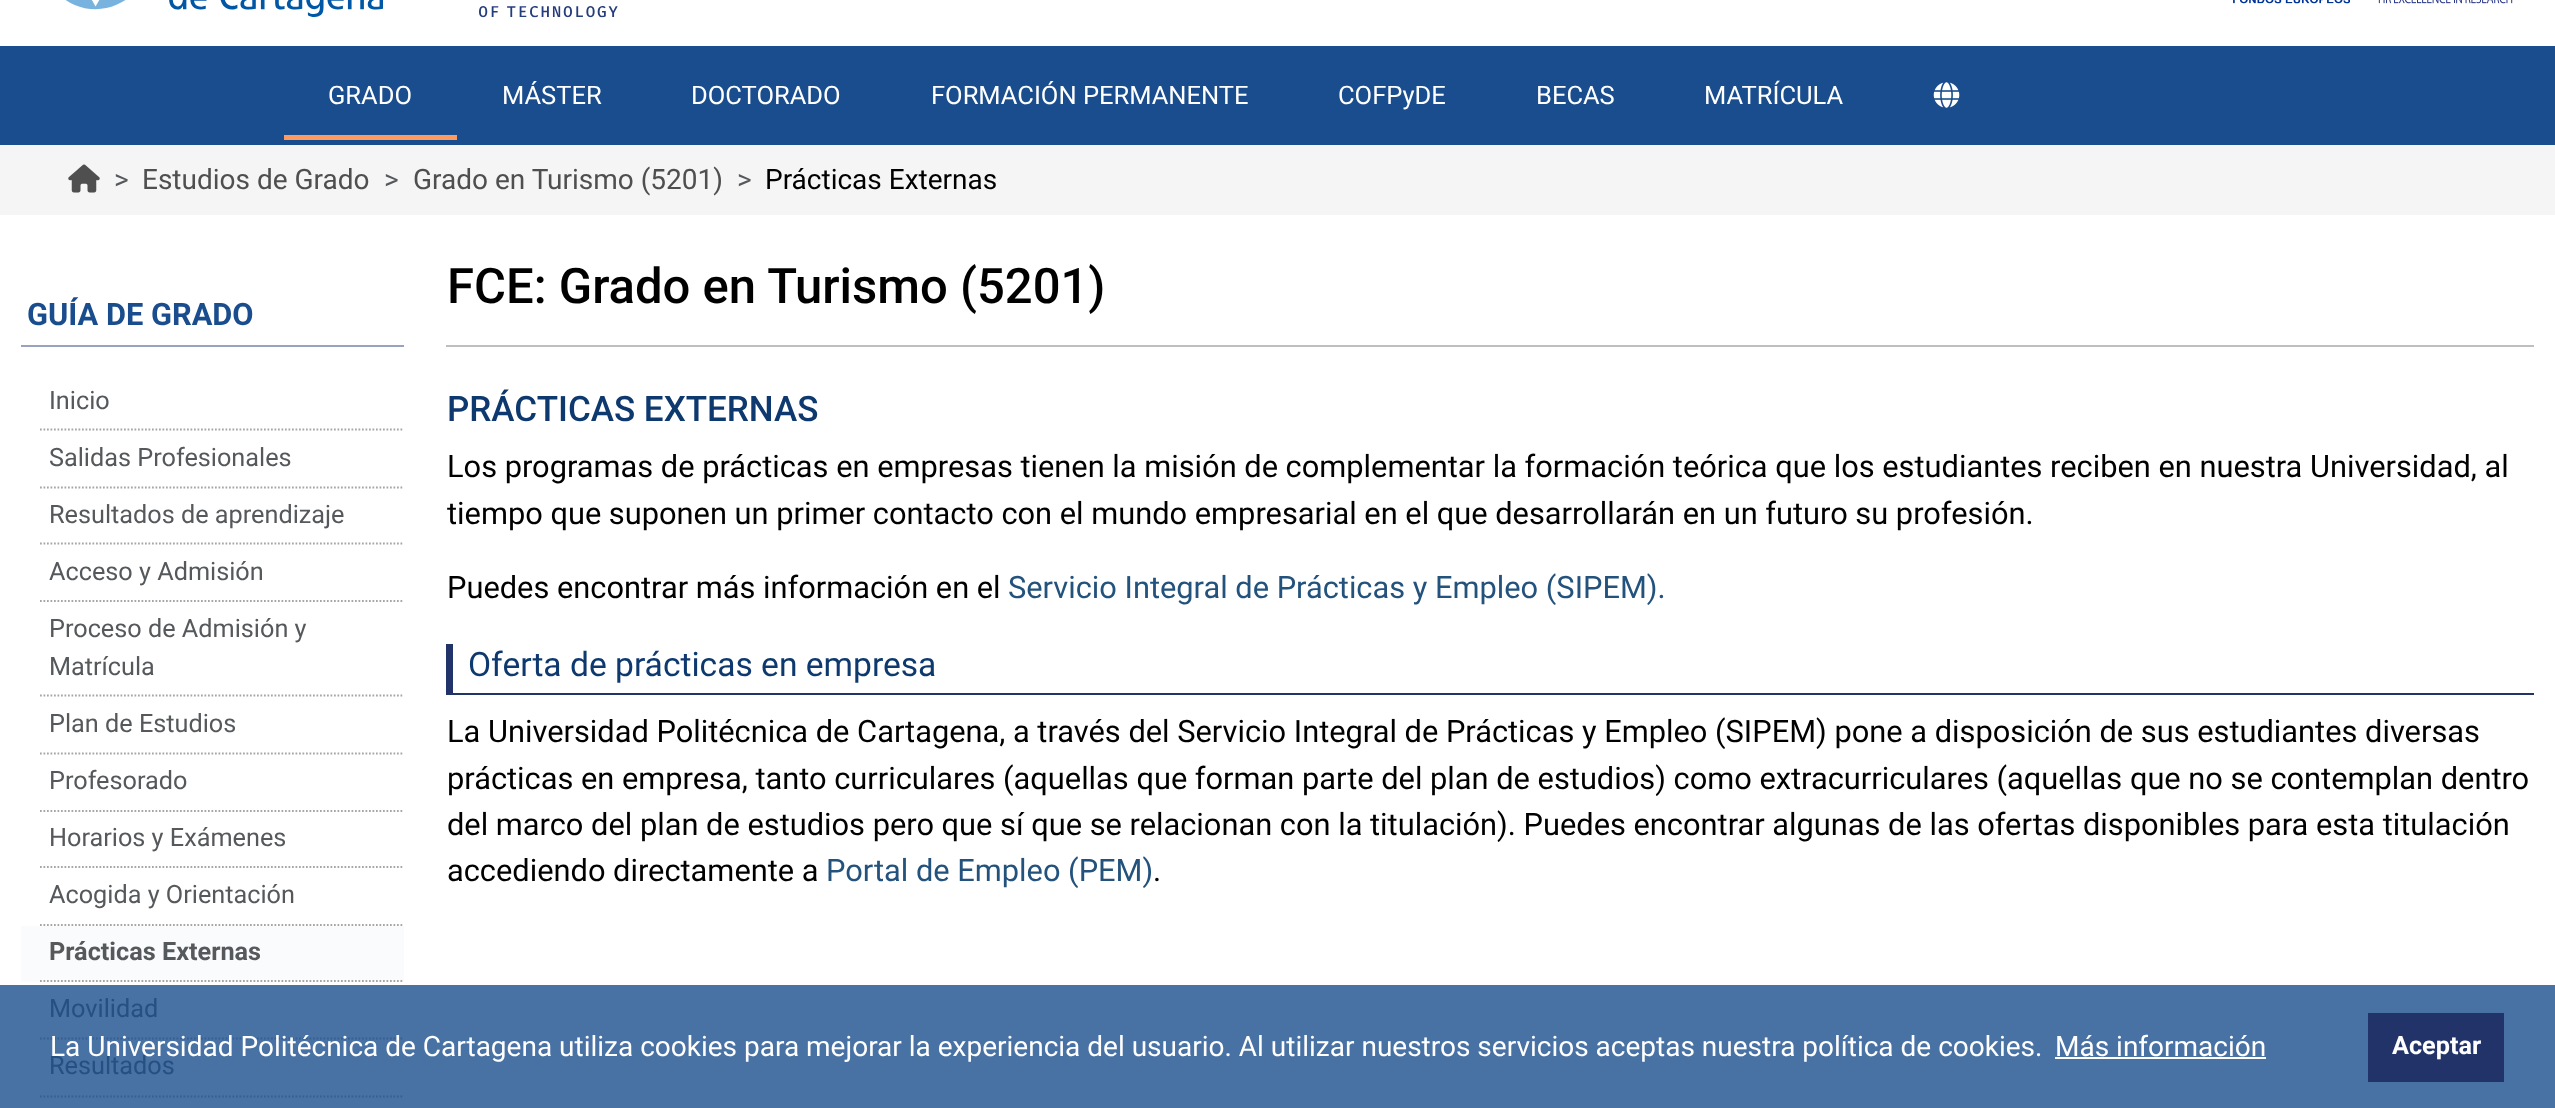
async function draw(canvas) {
  canvas.width = 2555;
  canvas.height = 1108;
  const ctx = canvas.getContext('2d');
  ctx.miterLimit = 4;
  ctx.fontKerning = 'normal';
  function label(s, x, y, font, color) {
    ctx.font = font;
    ctx.fillStyle = color;
    ctx.fillText(s, x, y);
  }
  function rect(x, y, w, h, color) {
    ctx.fillStyle = color;
    ctx.fillRect(x, y, w, h);
  }
  async function image(src, x, y, w, h) {
    const img = new Image();
    img.src = src;
    await img.decode();
    ctx.drawImage(img, x, y, w, h);
  }
  let path;

  rect(0, 0, 2555, 1108, '#fff');
  rect(0, 985, 2555, 123, '#4871a4');
  await image('assets/img1.png', 65, 0, 318, 17);
  await image('assets/img2.png', 479, 6, 139, 12);
  await image('assets/img3.png', 2233, 0, 117, 4);
  await image('assets/img4.png', 2378, 0, 135, 4);
  rect(0, 46, 2555, 99, '#1a4d8d');
  rect(284, 135, 173, 5, '#fc9a5f');
  label('GRADO', 328, 104, '25.5px Roboto', '#fff');
  label('MÁSTER', 502, 104, '25.5px Roboto', '#fff');
  label('DOCTORADO', 691, 104, '25.5px Roboto', '#fff');
  label('FORMACIÓN PERMANENTE', 931, 104, '25.5px Roboto', '#fff');
  label('COFPyDE', 1338, 104, '25.5px Roboto', '#fff');
  label('BECAS', 1536, 104, '25.5px Roboto', '#fff');
  label('MATRÍCULA', 1704, 104, '25.5px Roboto', '#fff');
  await image('assets/img5.png', 1933, 82, 27, 26);
  rect(0, 145, 2555, 70, '#f5f5f5');
  await image('assets/img6.png', 68, 164, 32, 29);
  label('>', 114, 189, '28px Roboto', '#56595c');
  label('Estudios de Grado', 142, 189, '28px Roboto', '#4f4f4f');
  label('>', 384, 189, '28px Roboto', '#56595c');
  label('Grado en Turismo (5201)', 413, 189, '28px Roboto', '#4f4f4f');
  label('>', 737, 189, '28px Roboto', '#56595c');
  label('Prácticas Externas', 765, 189, '28px Roboto', '#000');
  rect(21, 345, 383, 2, '#98a1bf');
  label('GUÍA DE GRADO', 27, 325, 'bold 30.8px Roboto', '#1a4d8d');
  path = new Path2D('M40 429.5H404');
  ctx.strokeStyle = '#a6a6a6';
  ctx.lineWidth = 1.8;
  ctx.setLineDash([1.75, 1.75]);
  ctx.stroke(path);
  label('Inicio', 49, 409, '25.25px Roboto', '#56595c');
  path = new Path2D('M40 487.5H404');
  ctx.stroke(path);
  label('Salidas Profesionales', 49, 466, '25.25px Roboto', '#56595c');
  path = new Path2D('M40 543.5H404');
  ctx.stroke(path);
  label('Resultados de aprendizaje', 49, 523, '25.25px Roboto', '#56595c');
  path = new Path2D('M40 601H404');
  ctx.stroke(path);
  label('Acceso y Admisión', 49, 580, '25.25px Roboto', '#56595c');
  path = new Path2D('M40 695.5H404');
  ctx.stroke(path);
  label('Proceso de Admisión y', 49, 637, '25.25px Roboto', '#56595c');
  label('Matrícula', 49, 675, '25.25px Roboto', '#56595c');
  path = new Path2D('M40 753.5H404');
  ctx.stroke(path);
  label('Plan de Estudios', 49, 732, '25.25px Roboto', '#56595c');
  path = new Path2D('M40 811H404');
  ctx.stroke(path);
  label('Profesorado', 49, 789, '25.25px Roboto', '#56595c');
  path = new Path2D('M40 867H404');
  ctx.stroke(path);
  label('Horarios y Exámenes', 49, 846, '25.25px Roboto', '#56595c');
  path = new Path2D('M40 925H404');
  ctx.stroke(path);
  label('Acogida y Orientación', 49, 903, '25.25px Roboto', '#56595c');
  rect(21, 926, 383, 56, '#fafbfc');
  path = new Path2D('M40 981H404');
  ctx.stroke(path);
  label('Prácticas Externas', 49, 960, 'bold 25.25px Roboto', '#56595c');
  path = new Path2D('M40 1038.5H404');
  ctx.strokeStyle = '#365f92';
  ctx.stroke(path);
  label('Movilidad', 49, 1017, '25.25px Roboto', '#264f82');
  path = new Path2D('M40 1096.5H404');
  ctx.stroke(path);
  label('Resultados', 49, 1074, '25.25px Roboto', '#264f82');
  label('FCE: Grado en Turismo (5201)', 447, 303, '500 49px Roboto', '#000');
  rect(446, 345, 2088, 2, '#bfbfbf');
  label('PRÁCTICAS EXTERNAS', 447, 421, '500 35px Roboto', '#0e396f');
  label('Los programas de prácticas en empresas tienen la misión de complementar la formación teórica que los estudiantes reciben en nuestra Universidad, al', 447, 477, '30.8px Roboto', '#000');
  label('tiempo que suponen un primer contacto con el mundo empresarial en el que desarrollarán en un futuro su profesión.', 447, 524, '30.8px Roboto', '#000');
  label('Puedes encontrar más información en el', 447, 598, '30.8px Roboto', '#000');
  label('Servicio Integral de Prácticas y Empleo (SIPEM).', 1008, 598, '30.8px Roboto', '#23527c');
  rect(446, 693, 2088, 2, '#223369');
  rect(446, 644, 7, 51, '#223369');
  label('Oferta de prácticas en empresa', 468, 676, '33.6px Roboto', '#0e396f');
  label('La Universidad Politécnica de Cartagena, a través del Servicio Integral de Prácticas y Empleo (SIPEM) pone a disposición de sus estudiantes diversas', 447, 742, '30.8px Roboto', '#000');
  label('prácticas en empresa, tanto curriculares (aquellas que forman parte del plan de estudios) como extracurriculares (aquellas que no se contemplan dentro', 447, 789, '30.8px Roboto', '#000');
  label('del marco del plan de estudios pero que sí que se relacionan con la titulación). Puedes encontrar algunas de las ofertas disponibles para esta titulación', 447, 835, '30.8px Roboto', '#000');
  label('accediendo directamente a', 447, 881, '30.8px Roboto', '#000');
  label('Portal de Empleo (PEM)', 826, 881, '30.8px Roboto', '#23527c');
  label('.', 1153, 881, '30.8px Roboto', '#000');
  label('La Universidad Politécnica de Cartagena utiliza cookies para mejorar la experiencia del usuario. Al utilizar nuestros servicios aceptas nuestra política de cookies.', 50, 1056, '28px Roboto', '#fff');
  label('Más información', 2055, 1056, '28px Roboto', '#fff');
  rect(2055, 1057, 211, 2, '#fff');
  rect(2368, 1013, 136, 69, '#223369');
  label('Aceptar', 2392, 1054, 'bold 25.25px Roboto', '#fff');
}

draw(document.querySelector('canvas'));
